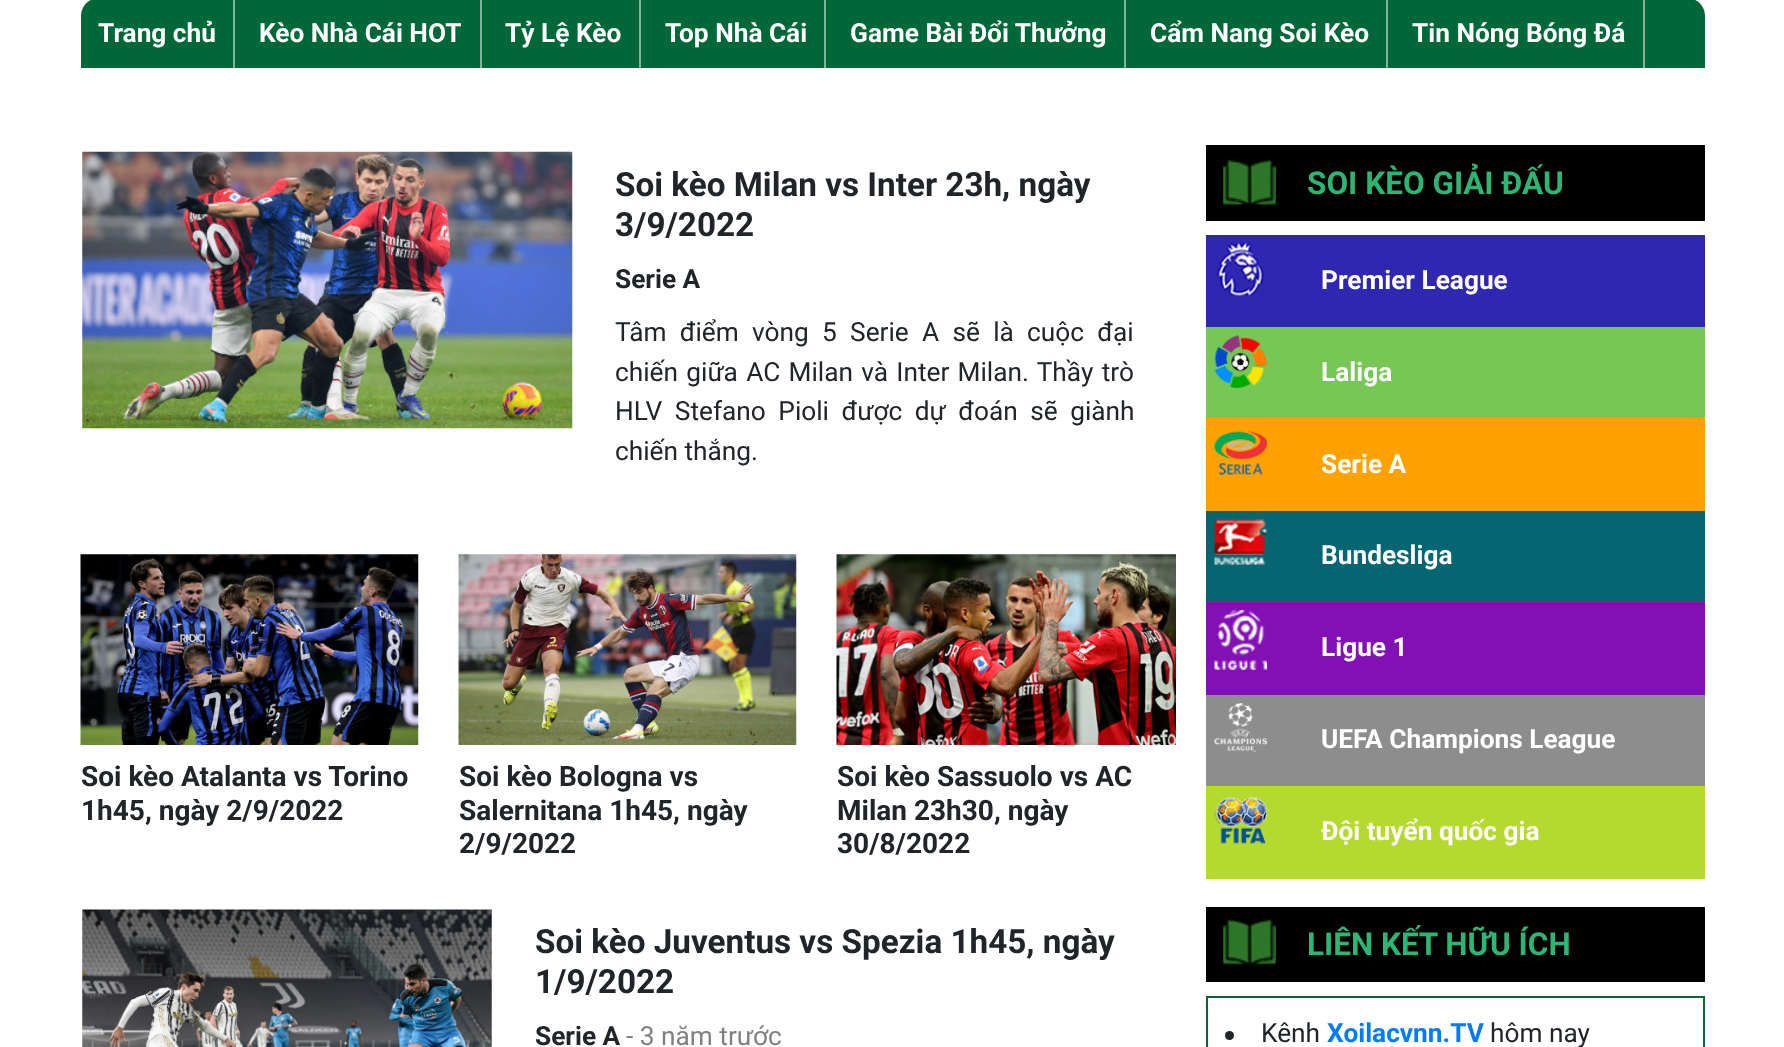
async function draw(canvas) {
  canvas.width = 1784;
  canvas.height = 1047;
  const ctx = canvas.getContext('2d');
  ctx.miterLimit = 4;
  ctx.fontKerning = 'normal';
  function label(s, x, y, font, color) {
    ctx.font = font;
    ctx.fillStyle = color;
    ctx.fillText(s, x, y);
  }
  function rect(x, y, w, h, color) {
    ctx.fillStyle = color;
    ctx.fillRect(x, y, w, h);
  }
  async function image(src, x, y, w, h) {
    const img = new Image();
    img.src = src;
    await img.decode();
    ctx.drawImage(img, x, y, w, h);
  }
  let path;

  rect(0, 0, 1784, 1047, '#fff');
  ctx.fillStyle = '#006838';
  path = new Path2D('M99-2H1687C1697-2 1705 6 1705 16V68H81V16C81 6 89-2 99-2Z');
  ctx.fill(path);
  rect(233, 0, 2, 68, '#80b49c');
  label('Trang chủ', 98, 42, 'bold 26.25px Roboto', '#fff');
  rect(480, 0, 2, 68, '#80b49c');
  label('Kèo Nhà Cái HOT', 259, 42, 'bold 26.25px Roboto', '#fff');
  rect(639, 0, 2, 68, '#80b49c');
  label('Tỷ Lệ Kèo', 505, 42, 'bold 26.25px Roboto', '#fff');
  rect(824, 0, 2, 68, '#80b49c');
  label('Top Nhà Cái', 665, 42, 'bold 26.25px Roboto', '#fff');
  rect(1124, 0, 2, 68, '#80b49c');
  label('Game Bài Đổi Thưởng', 850, 42, 'bold 26.25px Roboto', '#fff');
  rect(1386, 0, 2, 68, '#80b49c');
  label('Cẩm Nang Soi Kèo', 1150, 42, 'bold 26.25px Roboto', '#fff');
  rect(1643, 0, 2, 68, '#80b49c');
  label('Tin Nóng Bóng Đá', 1412, 42, 'bold 26.25px Roboto', '#fff');
  await image('assets/img1.png', 82, 151, 491, 278);
  label('Soi kèo Milan vs Inter 23h, ngày', 615, 196, 'bold 33.25px Roboto', '#212529');
  label('3/9/2022', 615, 236, 'bold 33.25px Roboto', '#212529');
  label('Serie A', 615, 288, 'bold 26.25px Roboto', '#212529');
  ctx.wordSpacing = '6.75px';
  label('Tâm điểm vòng 5 Serie A sẽ là cuộc đại', 615, 341, '26.25px Roboto', '#212529');
  ctx.wordSpacing = '1.75px';
  label('chiến giữa AC Milan và Inter Milan. Thầy trò', 615, 381, '26.25px Roboto', '#212529');
  ctx.wordSpacing = '6px';
  label('HLV Stefano Pioli được dự đoán sẽ giành', 615, 420, '26.25px Roboto', '#212529');
  ctx.wordSpacing = '0px';
  label('chiến thắng.', 615, 460, '26.25px Roboto', '#212529');
  await image('assets/img2.png', 80, 554, 339, 191);
  label('Soi kèo Atalanta vs Torino', 81, 786, 'bold 28px Roboto', '#212529');
  label('1h45, ngày 2/9/2022', 81, 820, 'bold 28px Roboto', '#212529');
  await image('assets/img3.png', 458, 554, 339, 191);
  label('Soi kèo Bologna vs', 459, 786, 'bold 28px Roboto', '#212529');
  label('Salernitana 1h45, ngày', 459, 820, 'bold 28px Roboto', '#212529');
  label('2/9/2022', 459, 853, 'bold 28px Roboto', '#212529');
  await image('assets/img4.png', 836, 554, 340, 191);
  label('Soi kèo Sassuolo vs AC', 837, 786, 'bold 28px Roboto', '#212529');
  label('Milan 23h30, ngày', 837, 820, 'bold 28px Roboto', '#212529');
  label('30/8/2022', 837, 853, 'bold 28px Roboto', '#212529');
  await image('assets/img5.png', 82, 909, 410, 138);
  label('Soi kèo Juventus vs Spezia 1h45, ngày', 535, 953, 'bold 33.25px Roboto', '#212529');
  label('1/9/2022', 535, 993, 'bold 33.25px Roboto', '#212529');
  label('Serie A', 535, 1045, 'bold 26.25px Roboto', '#212529');
  label('- 3 năm trước', 626, 1045, '26.25px Roboto', '#808080');
  rect(1206, 145, 499, 76, '#000');
  await image('assets/img6.png', 1223, 160, 53, 45);
  label('SOI KÈO GIẢI ĐẤU', 1307, 194, 'bold 31.5px Roboto', '#2bb673');
  rect(1206, 235, 499, 92, '#2f26b1');
  await image('assets/img7.png', 1216, 242, 48, 54);
  label('Premier League', 1321, 289, 'bold 26.25px Roboto', '#fff');
  rect(1206, 327, 499, 91, '#76c756');
  await image('assets/img8.png', 1214, 335, 53, 53);
  label('Laliga', 1321, 381, 'bold 26.25px Roboto', '#fff');
  rect(1206, 418, 499, 93, '#ffa200');
  await image('assets/img9.png', 1214, 430, 53, 45);
  label('Serie A', 1321, 473, 'bold 26.25px Roboto', '#fff');
  rect(1206, 511, 499, 91, '#056672');
  await image('assets/img10.png', 1214, 519, 53, 46);
  label('Bundesliga', 1321, 564, 'bold 26.25px Roboto', '#fff');
  rect(1206, 602, 499, 93, '#8310b4');
  await image('assets/img11.png', 1214, 610, 53, 60);
  label('Ligue 1', 1321, 656, 'bold 26.25px Roboto', '#fff');
  rect(1206, 695, 499, 91, '#8d8d8d');
  await image('assets/img12.png', 1214, 703, 53, 49);
  label('UEFA Champions League', 1321, 748, 'bold 26.25px Roboto', '#fff');
  rect(1206, 786, 499, 93, '#b4da30');
  await image('assets/img13.png', 1214, 797, 53, 47);
  label('Đội tuyển quốc gia', 1321, 840, 'bold 26.25px Roboto', '#fff');
  rect(1206, 907, 499, 75, '#000');
  await image('assets/img14.png', 1223, 919, 53, 46);
  label('LIÊN KẾT HỮU ÍCH', 1307, 955, 'bold 31.5px Roboto', '#2bb673');
  ctx.strokeStyle = '#006838';
  ctx.lineWidth = 2;
  ctx.strokeRect(1207, 997, 497, 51);
  ctx.fillStyle = '#212529';
  ctx.beginPath();
  ctx.arc(1229.5, 1035.5, 4.5, 0, 2 * Math.PI);
  ctx.fill();
  label('Kênh', 1261, 1042, '26.25px Roboto', '#212529');
  label('Xoilacvnn.TV', 1327, 1042, 'bold 26.25px Roboto', '#007bff');
  label('hôm nay', 1490, 1042, '26.25px Roboto', '#212529');
}

draw(document.querySelector('canvas'));
